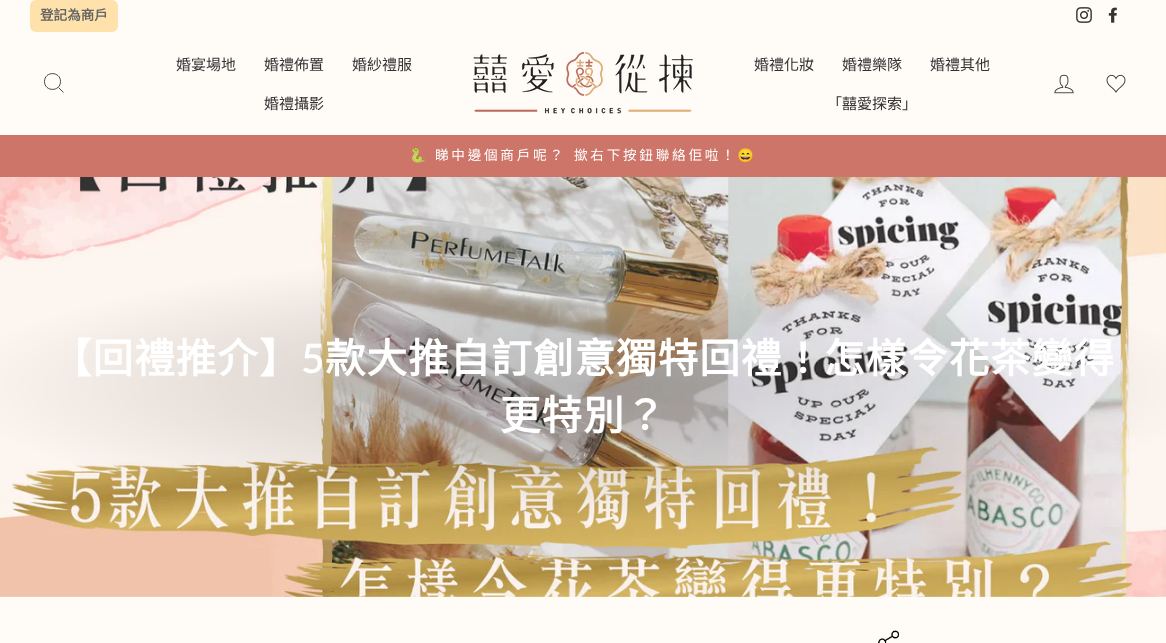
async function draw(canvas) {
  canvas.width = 1166;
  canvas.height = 643;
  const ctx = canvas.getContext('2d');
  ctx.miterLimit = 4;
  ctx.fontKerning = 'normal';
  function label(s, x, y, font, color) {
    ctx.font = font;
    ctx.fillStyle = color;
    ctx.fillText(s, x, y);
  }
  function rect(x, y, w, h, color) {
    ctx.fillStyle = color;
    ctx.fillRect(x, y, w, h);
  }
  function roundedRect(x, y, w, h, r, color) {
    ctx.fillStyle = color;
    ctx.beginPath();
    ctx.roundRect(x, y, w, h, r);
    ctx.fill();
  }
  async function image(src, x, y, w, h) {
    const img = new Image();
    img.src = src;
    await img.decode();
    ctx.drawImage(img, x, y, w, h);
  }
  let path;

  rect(0, 0, 1166, 643, '#fffbf7');
  roundedRect(30, 0, 88, 32, 6, '#ffe1ab');
  label('登記為商戶', 40, 20, 'bold 13.6px Noto Sans CJK TC', '#636363');
  await image('assets/img1.png', 1076, 7, 16, 16);
  await image('assets/img2.png', 1108, 7, 9, 16);
  path = new Path2D('M60.5 81.5C60.5 92 44.5 92 44.5 81.5C44.5 71 60.5 71 60.5 81.5ZM63.5 92.5L58.5 87.5');
  ctx.strokeStyle = '#333';
  ctx.lineWidth = 0.9;
  ctx.stroke(path);
  label('婚宴場地', 176, 70, '15px Noto Sans CJK TC', '#333');
  label('婚禮佈置', 264, 70, '15px Noto Sans CJK TC', '#333');
  label('婚紗禮服', 352, 70, '15px Noto Sans CJK TC', '#333');
  label('婚禮攝影', 264, 109, '15px Noto Sans CJK TC', '#333');
  await image('assets/img3.png', 473, 52, 220, 62);
  label('婚禮化妝', 754, 70, '15px Noto Sans CJK TC', '#333');
  label('婚禮樂隊', 842, 70, '15px Noto Sans CJK TC', '#333');
  label('婚禮其他', 930, 70, '15px Noto Sans CJK TC', '#333');
  label('「囍愛探索」', 827, 109, '15px Noto Sans CJK TC', '#333');
  await image('assets/img4.png', 1054, 74, 20, 20);
  await image('assets/img5.png', 1106, 74, 20, 19);
  rect(0, 135, 1166, 42, '#ce756a');
  ctx.letterSpacing = '2.75px';
  label('🐍', 409, 160, '13.6px Noto Color Emoji', '#fff');
  label('睇中邊個商戶呢？', 435, 160, '13.6px Noto Sans CJK TC', '#fff');
  label('撳右下按鈕聯絡佢啦！', 574, 160, '13.6px Noto Sans CJK TC', '#fff');
  label('😄', 737, 160, '13.6px Noto Color Emoji', '#fff');
  await image('assets/img6.png', 0, 177, 1166, 420);
  ctx.letterSpacing = '1px';
  label('【回禮推介】', 51, 373, 'bold 40.6px Noto Sans CJK TC', '#fff');
  label('5', 301, 373, '600 40.6px Lato', '#fff');
  label('款大推自訂創意獨特回禮！怎樣令花茶變得', 325, 373, 'bold 40.6px Noto Sans CJK TC', '#fff');
  label('更特別？', 500, 430, 'bold 40.6px Noto Sans CJK TC', '#fff');
  await image('assets/img7.png', 878, 630, 21, 13);
}

draw(document.querySelector('canvas'));
